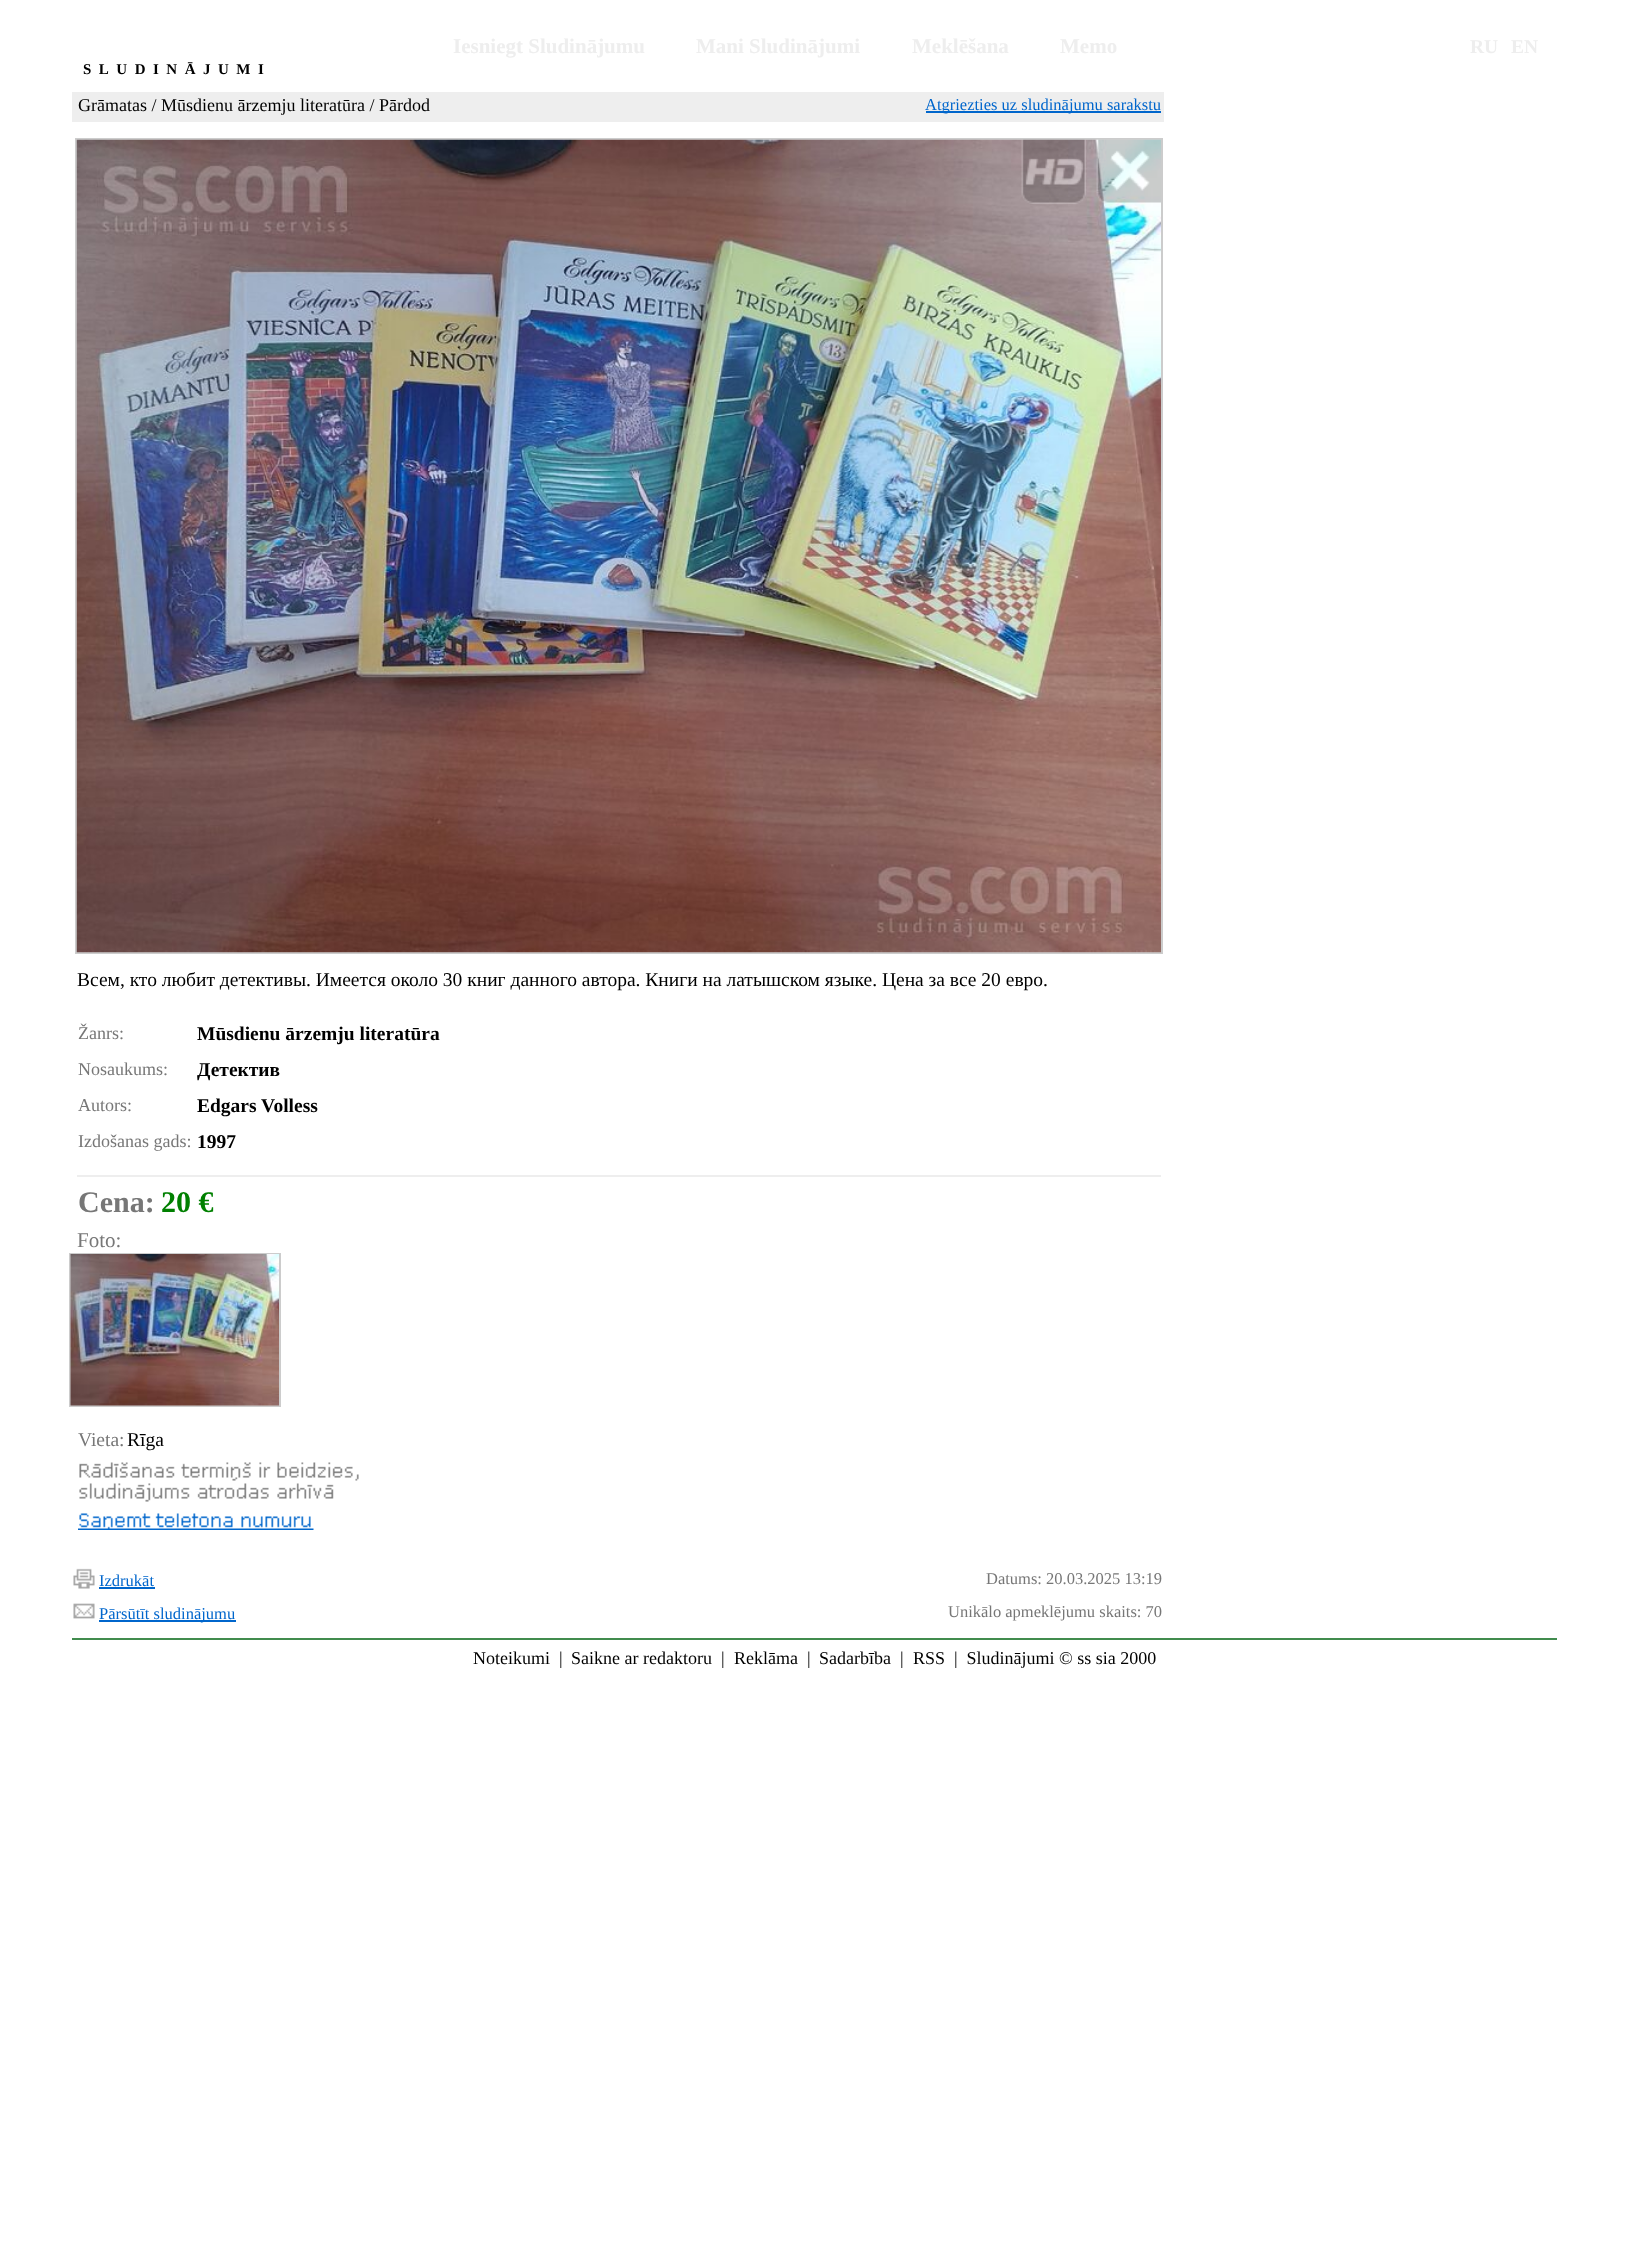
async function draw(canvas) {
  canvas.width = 1629;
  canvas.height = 2242;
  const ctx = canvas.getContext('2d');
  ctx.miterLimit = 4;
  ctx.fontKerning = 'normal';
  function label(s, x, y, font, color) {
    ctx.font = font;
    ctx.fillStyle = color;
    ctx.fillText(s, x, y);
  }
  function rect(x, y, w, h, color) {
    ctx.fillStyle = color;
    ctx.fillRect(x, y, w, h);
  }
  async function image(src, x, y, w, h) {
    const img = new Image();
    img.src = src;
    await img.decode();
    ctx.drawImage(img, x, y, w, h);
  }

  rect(0, 0, 1629, 2242, '#fff');
  label('Iesniegt Sludinājumu', 453, 53, 'bold 21px Liberation Serif', '#eee');
  label('Mani Sludinājumi', 696, 53, 'bold 21px Liberation Serif', '#eee');
  label('Meklēšana', 912, 53, 'bold 21px Liberation Serif', '#eee');
  label('Memo', 1060, 53, 'bold 21px Liberation Serif', '#eee');
  label('RU', 1470, 53, 'bold 19.5px Liberation Serif', '#eee');
  label('EN', 1511, 53, 'bold 19.5px Liberation Serif', '#eee');
  ctx.letterSpacing = '7.5px';
  label('SLUDINĀJUMI', 83, 74, 'bold 15px Liberation Serif', '#000');
  rect(72, 92, 1092, 30, '#eee');
  ctx.letterSpacing = '0px';
  label('Grāmatas / Mūsdienu ārzemju literatūra / Pārdod', 78, 111, '18px Liberation Serif', '#000');
  rect(926, 111, 235, 2, '#06c');
  label('Atgriezties uz sludinājumu sarakstu', 925, 110, '16.5px Liberation Serif', '#06c');
  ctx.strokeStyle = '#ccc';
  ctx.lineWidth = 2;
  ctx.strokeRect(76, 139, 1086, 814);
  await image('assets/img1.png', 76, 139, 1085, 814);
  await image('assets/img2.png', 1021, 139, 65, 65);
  await image('assets/img3.png', 1096, 139, 65, 65);
  label('Всем, кто любит детективы. Имеется около 30 книг данного автора. Книги на латышском языке. Цена за все 20 евро.', 77, 986, '19.5px Liberation Serif', '#000');
  label('Žanrs:', 78, 1039, '18px Liberation Serif', '#777');
  label('Mūsdienu ārzemju literatūra', 197, 1040, 'bold 19.5px Liberation Serif', '#000');
  label('Nosaukums:', 78, 1075, '18px Liberation Serif', '#777');
  label('Детектив', 197, 1076, 'bold 19.5px Liberation Serif', '#000');
  label('Autors:', 78, 1111, '18px Liberation Serif', '#777');
  label('Edgars Volless', 197, 1112, 'bold 19.5px Liberation Serif', '#000');
  label('Izdošanas gads:', 78, 1147, '18px Liberation Serif', '#777');
  label('1997', 197, 1148, 'bold 19.5px Liberation Serif', '#000');
  rect(77, 1175, 1084, 2, '#eee');
  label('Cena:', 78, 1212, 'bold 30px Liberation Serif', '#777');
  label('20 €', 161, 1212, 'bold 30px Liberation Serif', '#008000');
  label('Foto:', 77, 1247, '21px Liberation Serif', '#777');
  ctx.strokeRect(70, 1254, 210, 152);
  await image('assets/img4.png', 70, 1254, 209, 152);
  label('Vieta:', 78, 1446, '19.5px Liberation Serif', '#777');
  label('Rīga', 127, 1446, '19.5px Liberation Serif', '#000');
  await image('assets/img5.png', 79, 1462, 280, 40);
  await image('assets/img6.png', 78, 1513, 236, 17);
  await image('assets/img7.png', 73, 1568, 22, 21);
  label('Izdrukāt', 99, 1586, '16.5px Liberation Serif', '#06c');
  rect(99, 1587, 56, 2, '#06c');
  label('Datums: 20.03.2025 13:19', 986, 1584, '16.5px Liberation Serif', '#777');
  await image('assets/img8.png', 73, 1603, 22, 16);
  rect(99, 1620, 137, 2, '#06c');
  label('Pārsūtīt sludinājumu', 99, 1619, '16.5px Liberation Serif', '#06c');
  label('Unikālo apmeklējumu skaits: 70', 948, 1617, '16.5px Liberation Serif', '#777');
  rect(72, 1638, 1485, 2, '#418c4e');
  label('Noteikumi', 473, 1664, '18px Liberation Serif', '#000');
  label('|', 559, 1664, '18px Liberation Serif', '#000');
  label('Saikne ar redaktoru', 571, 1664, '18px Liberation Serif', '#000');
  label('|', 721, 1664, '18px Liberation Serif', '#000');
  label('Reklāma', 734, 1664, '18px Liberation Serif', '#000');
  label('|', 807, 1664, '18px Liberation Serif', '#000');
  label('Sadarbība', 819, 1664, '18px Liberation Serif', '#000');
  label('|', 900, 1664, '18px Liberation Serif', '#000');
  label('RSS', 913, 1664, '18px Liberation Serif', '#000');
  label('|  Sludinājumi © ss sia 2000', 954, 1664, '18px Liberation Serif', '#000');
}

draw(document.querySelector('canvas'));
